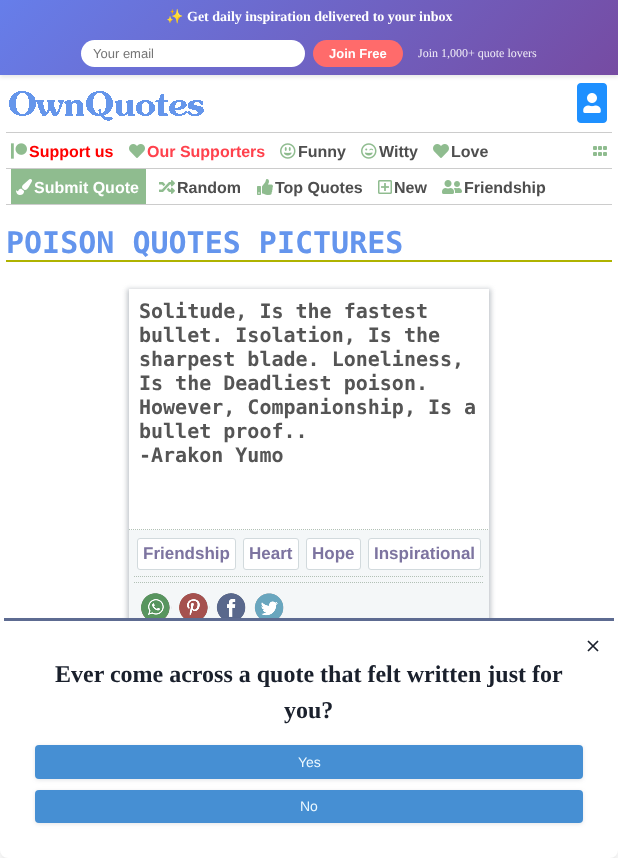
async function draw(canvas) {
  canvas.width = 618;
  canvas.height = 858;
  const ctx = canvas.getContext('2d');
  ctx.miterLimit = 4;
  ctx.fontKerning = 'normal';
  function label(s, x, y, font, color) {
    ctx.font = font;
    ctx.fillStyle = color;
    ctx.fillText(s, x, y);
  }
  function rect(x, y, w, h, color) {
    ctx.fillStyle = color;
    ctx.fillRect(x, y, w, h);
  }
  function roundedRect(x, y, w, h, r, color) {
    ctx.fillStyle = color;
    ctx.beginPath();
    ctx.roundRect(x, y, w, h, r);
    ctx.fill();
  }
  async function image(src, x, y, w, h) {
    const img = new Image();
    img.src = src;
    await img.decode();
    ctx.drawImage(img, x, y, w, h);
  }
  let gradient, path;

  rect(0, 0, 618, 858, '#fff');
  await image('assets/img2.png', 577, 83, 30, 40);
  ctx.fillStyle = '#0000001a';
  ctx.filter = 'blur(2px)';
  ctx.beginPath();
  ctx.rect(0, 2, 618, 75);
  ctx.fill();
  ctx.filter = 'none';
  gradient = ctx.createLinearGradient(136, -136, 482, 211);
  gradient.addColorStop(0, '#667eea');
  gradient.addColorStop(1, '#764ba2');
  ctx.fillStyle = gradient;
  ctx.fillRect(0, 0, 618, 75);
  label('✨', 166, 21, 'bold 14px Noto Color Emoji', '#fff');
  label('Get daily inspiration delivered to your inbox', 187, 21, 'bold 14px Liberation Serif', '#fff');
  roundedRect(81, 40, 224, 27, 13.5, '#fff');
  label('Your email', 93, 58, '13px Liberation Sans', '#757575');
  roundedRect(313, 40, 90, 27, 13.5, '#ff6b6b');
  label('Join Free', 329, 58, 'bold 13px Liberation Sans', '#fff');
  label('Join 1,000+ quote lovers', 418, 57, '12px Liberation Serif', '#f1eef7');
  await image('assets/img1.png', 9, 91, 195, 30);
  rect(6, 132, 606, 1, '#ccc');
  await image('assets/img3.png', 11, 143, 16, 16);
  label('Support us', 29, 157, 'bold 16px Liberation Sans', '#f00');
  await image('assets/img4.png', 129, 144, 16, 14);
  label('Our Supporters', 147, 157, 'bold 16px Liberation Sans', '#ff424d');
  await image('assets/img5.png', 280, 143, 16, 16);
  label('Funny', 298, 157, 'bold 16px Liberation Sans', '#4e4e4e');
  await image('assets/img6.png', 361, 143, 16, 16);
  label('Witty', 379, 157, 'bold 16px Liberation Sans', '#4e4e4e');
  await image('assets/img4.png', 433, 144, 16, 14);
  label('Love', 451, 157, 'bold 16px Liberation Sans', '#4e4e4e');
  await image('assets/img7.png', 593, 146, 14, 10);
  rect(6, 168, 606, 1, '#ccc');
  rect(6, 204, 606, 1, '#ccc');
  rect(11, 169, 135, 35, '#8fbc8f');
  await image('assets/img8.png', 16, 179, 16, 16);
  label('Submit Quote', 34, 193, 'bold 16px Liberation Sans', '#fff');
  await image('assets/img9.png', 159, 180, 16, 14);
  label('Random', 177, 193, 'bold 16px Liberation Sans', '#4e4e4e');
  await image('assets/img10.png', 257, 179, 16, 16);
  label('Top Quotes', 275, 193, 'bold 16px Liberation Sans', '#4e4e4e');
  await image('assets/img11.png', 378, 180, 14, 14);
  label('New', 394, 193, 'bold 16px Liberation Sans', '#4e4e4e');
  await image('assets/img12.png', 442, 180, 20, 14);
  label('Friendship', 464, 193, 'bold 16px Liberation Sans', '#4e4e4e');
  rect(6, 260, 606, 2, '#afb300');
  label('POISON QUOTES PICTURES', 6, 253, 'bold 30px DejaVu Sans Mono', '#6495ed');
  ctx.fillStyle = '#c3c7cc';
  ctx.filter = 'blur(2.5px)';
  ctx.beginPath();
  ctx.rect(127, 289, 364, 344);
  ctx.fill();
  ctx.filter = 'none';
  rect(129, 530, 360, 88, '#f4f7f8');
  rect(129, 289, 360, 241, '#fff');
  path = new Path2D('M129 529.5H489');
  ctx.strokeStyle = '#b2c1b6';
  ctx.setLineDash([1, 1]);
  ctx.stroke(path);
  label('Solitude, Is the fastest', 139, 318, 'bold 20px DejaVu Sans Mono', '#555');
  label('bullet. Isolation, Is the', 139, 342, 'bold 20px DejaVu Sans Mono', '#555');
  label('sharpest blade. Loneliness,', 139, 366, 'bold 20px DejaVu Sans Mono', '#555');
  label('Is the Deadliest poison.', 139, 390, 'bold 20px DejaVu Sans Mono', '#555');
  label('However, Companionship, Is a', 139, 414, 'bold 20px DejaVu Sans Mono', '#555');
  label('bullet proof..', 139, 438, 'bold 20px DejaVu Sans Mono', '#555');
  label('-Arakon Yumo', 139, 462, 'bold 20px DejaVu Sans Mono', '#555');
  path = new Path2D('M134 576.5H484');
  ctx.stroke(path);
  ctx.fillStyle = '#fff';
  ctx.beginPath();
  ctx.roundRect(137.5, 538.5, 98, 31, 2.5);
  ctx.fill();
  ctx.strokeStyle = '#d2dadd';
  ctx.setLineDash([]);
  ctx.stroke();
  label('Friendship', 143, 559, 'bold 17px Liberation Sans', '#7d74a0');
  ctx.fillStyle = '#fff';
  ctx.beginPath();
  ctx.roundRect(243.5, 538.5, 55, 31, 2.5);
  ctx.fill();
  ctx.stroke();
  label('Heart', 249, 559, 'bold 17px Liberation Sans', '#7d74a0');
  ctx.fillStyle = '#fff';
  ctx.beginPath();
  ctx.roundRect(306.5, 538.5, 54, 31, 2.5);
  ctx.fill();
  ctx.stroke();
  label('Hope', 312, 559, 'bold 17px Liberation Sans', '#7d74a0');
  ctx.fillStyle = '#fff';
  ctx.beginPath();
  ctx.roundRect(368.5, 538.5, 112, 31, 2.5);
  ctx.fill();
  ctx.stroke();
  label('Inspirational', 374, 559, 'bold 17px Liberation Sans', '#7d74a0');
  path = new Path2D('M134 582.5H484');
  ctx.strokeStyle = '#b2c1b6';
  ctx.setLineDash([1, 1]);
  ctx.stroke(path);
  await image('assets/img13.png', 141, 593, 31, 25);
  await image('assets/img14.png', 179, 593, 31, 25);
  await image('assets/img15.png', 216, 593, 30, 25);
  await image('assets/img16.png', 254, 593, 30, 25);
  ctx.fillStyle = '#0000000d';
  ctx.filter = 'blur(3px)';
  ctx.beginPath();
  ctx.roundRect(2, 624, 614, 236, 6);
  ctx.fill();
  ctx.filter = 'none';
  ctx.fillStyle = '#0000001a';
  ctx.filter = 'blur(7.5px)';
  ctx.beginPath();
  ctx.roundRect(3, 631, 612, 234, 5);
  ctx.fill();
  ctx.filter = 'none';
  roundedRect(0, 618, 618, 240, 8, '#fff');
  rect(4, 618, 610, 3, '#5d6b91');
  path = new Path2D('M588 641L598 651M588 651L598 641');
  ctx.strokeStyle = '#1a202c';
  ctx.lineWidth = 1.7;
  ctx.setLineDash([]);
  ctx.stroke(path);
  label('Ever come across a quote that felt written just for', 55, 682, 'bold 24px Liberation Serif', '#1a202c');
  label('you?', 284, 718, 'bold 24px Liberation Serif', '#1a202c');
  ctx.fillStyle = '#505a6329';
  ctx.filter = 'blur(2px)';
  ctx.beginPath();
  ctx.roundRect(35, 746, 548, 34, 4);
  ctx.fill();
  ctx.filter = 'none';
  roundedRect(35, 745, 548, 34, 4, '#468fd3');
  label('Yes', 298, 767, '14px Liberation Sans', '#edf9ff');
  ctx.fillStyle = '#505a6329';
  ctx.filter = 'blur(2px)';
  ctx.beginPath();
  ctx.roundRect(35, 791, 548, 33, 4);
  ctx.fill();
  ctx.filter = 'none';
  roundedRect(35, 790, 548, 33, 4, '#468fd3');
  label('No', 300, 811, '14px Liberation Sans', '#edf9ff');
}

draw(document.querySelector('canvas'));
